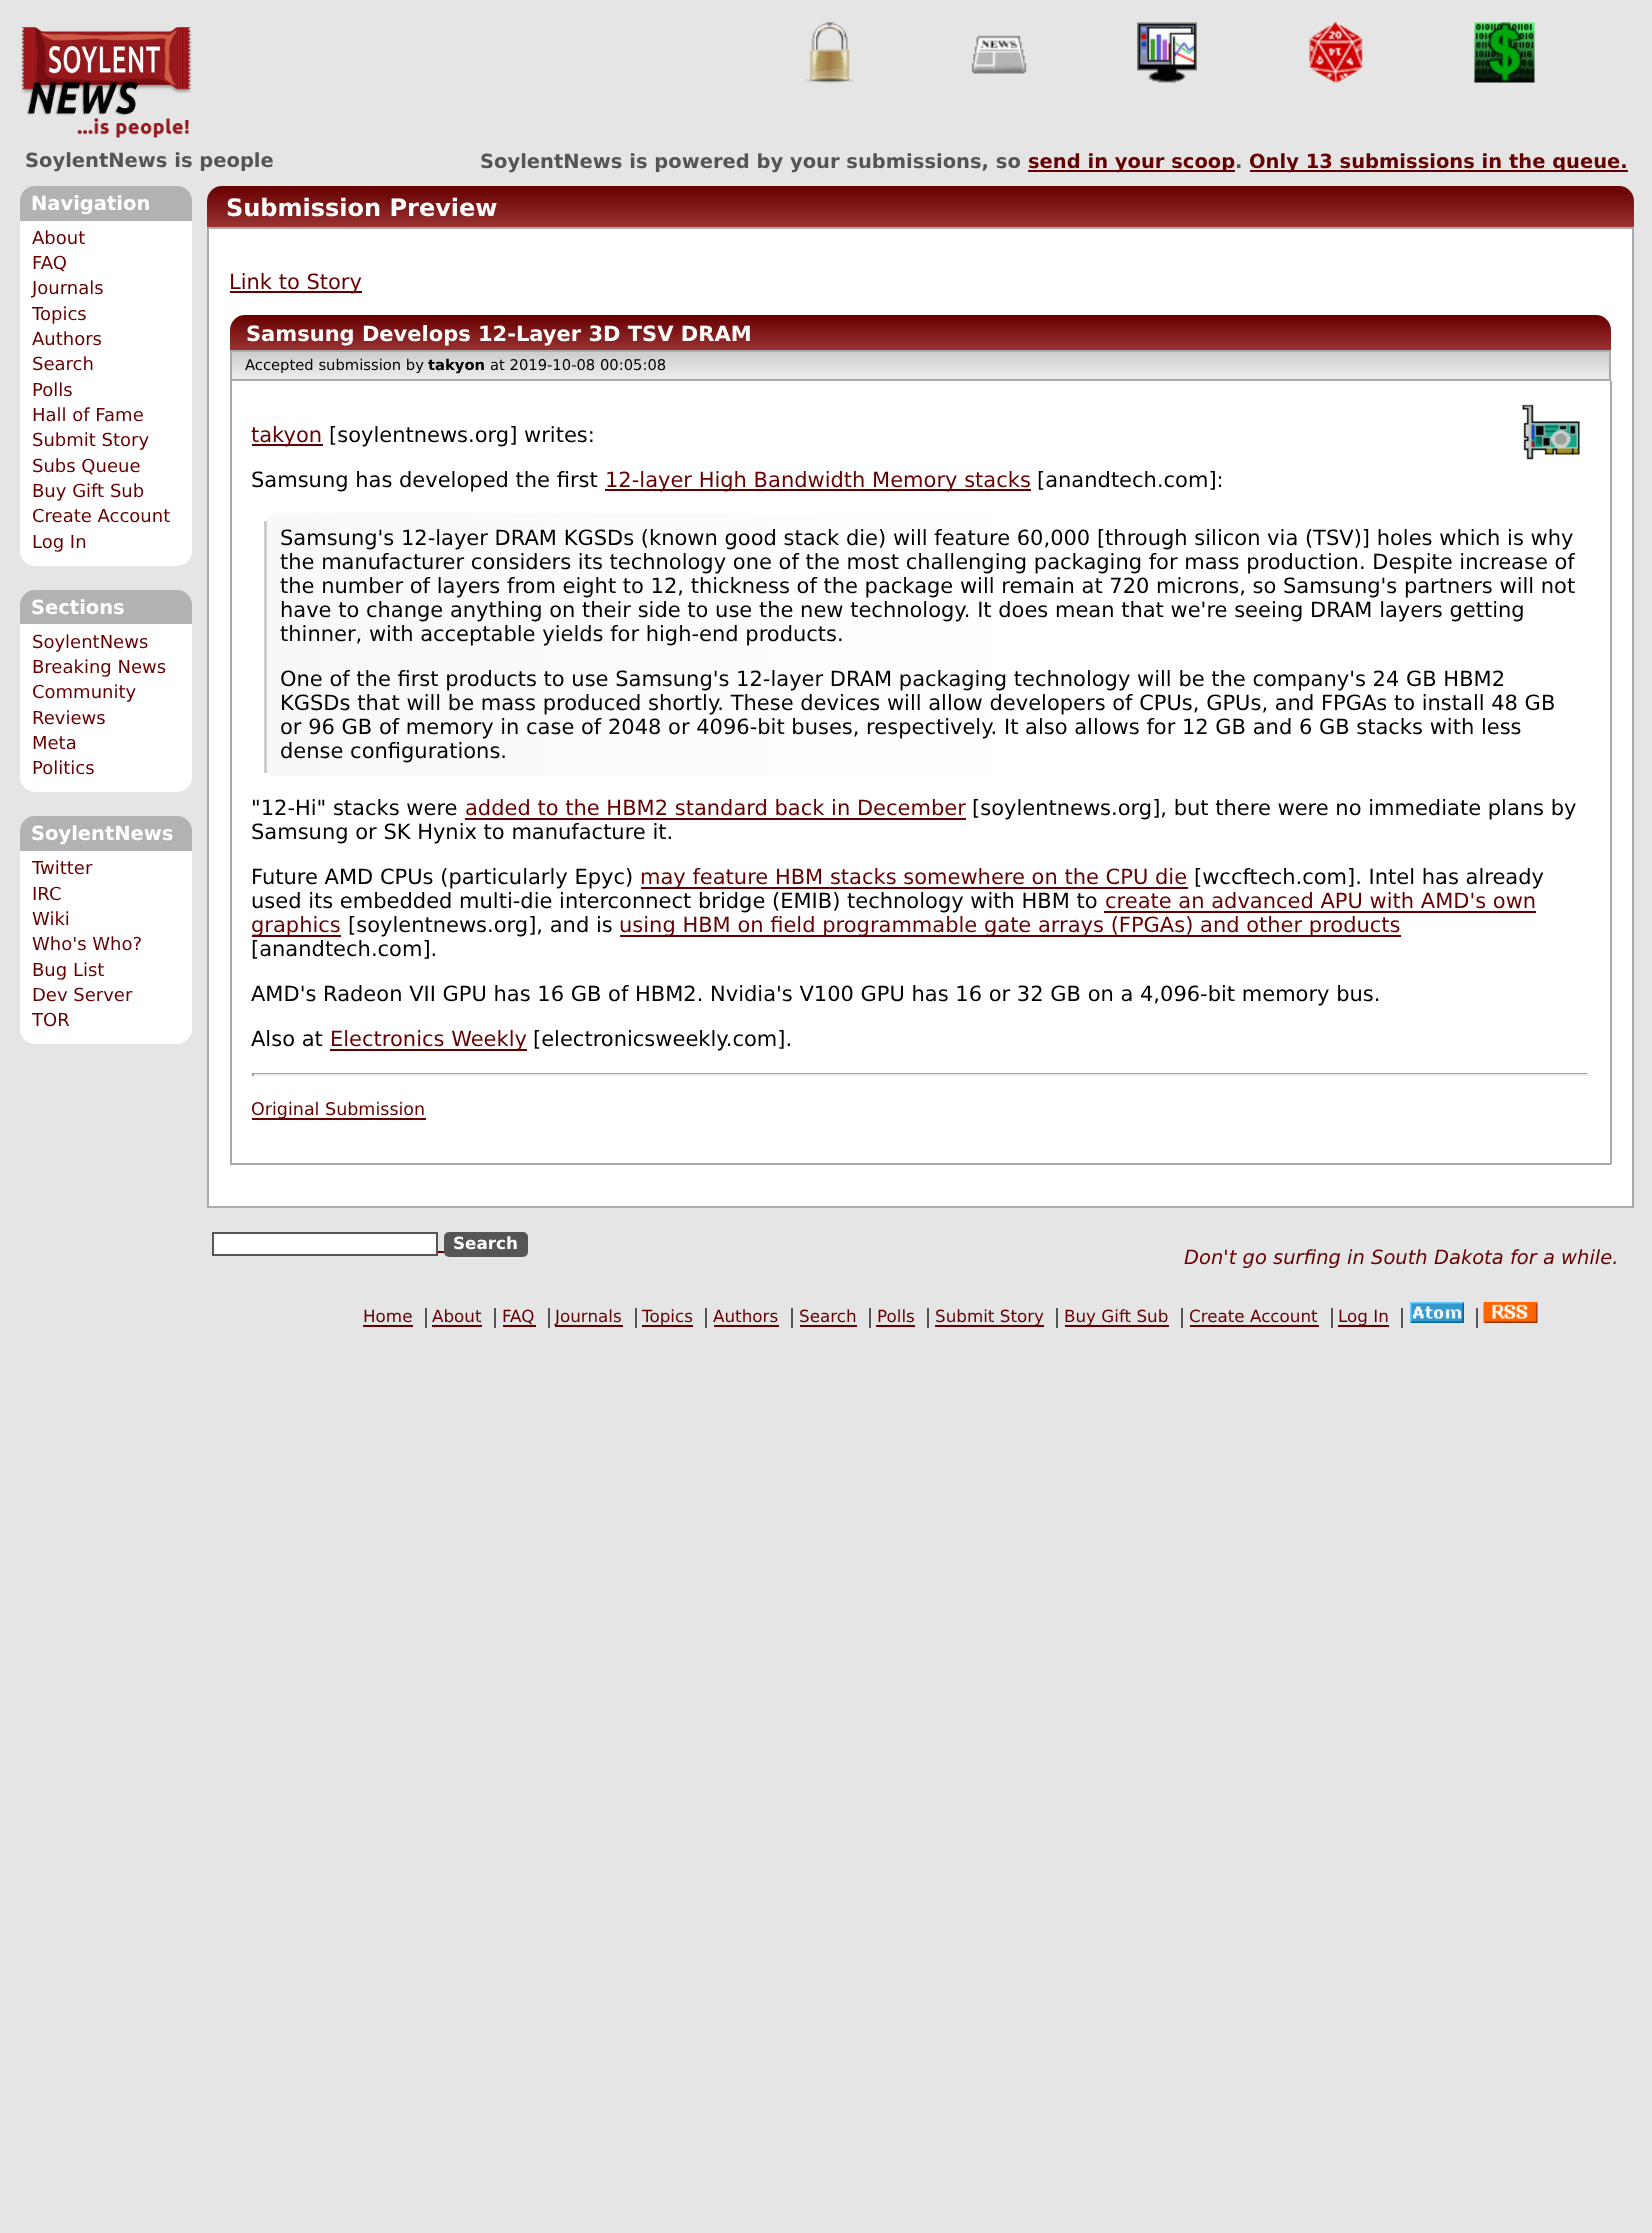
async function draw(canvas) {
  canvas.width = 1652;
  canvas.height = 2233;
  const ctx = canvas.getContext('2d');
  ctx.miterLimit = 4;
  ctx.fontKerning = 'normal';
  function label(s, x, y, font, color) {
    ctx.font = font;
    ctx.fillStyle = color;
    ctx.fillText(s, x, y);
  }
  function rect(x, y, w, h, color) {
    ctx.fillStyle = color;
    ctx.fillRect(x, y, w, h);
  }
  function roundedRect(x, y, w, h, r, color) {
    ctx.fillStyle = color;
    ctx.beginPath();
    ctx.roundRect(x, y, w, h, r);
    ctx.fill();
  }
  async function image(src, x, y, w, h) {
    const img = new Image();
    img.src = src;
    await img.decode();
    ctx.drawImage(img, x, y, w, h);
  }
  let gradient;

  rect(0, 0, 1652, 2233, '#e5e5e5');
  await image('assets/img1.png', 21, 27, 171, 111);
  await image('assets/img2.png', 805, 22, 50, 61);
  await image('assets/img3.png', 971, 35, 56, 39);
  await image('assets/img4.png', 1137, 22, 60, 61);
  await image('assets/img5.png', 1309, 22, 54, 61);
  await image('assets/img6.png', 1474, 22, 61, 61);
  label('SoylentNews is people', 25, 167, 'bold 19.5px DejaVu Sans', '#555');
  label('SoylentNews is powered by your submissions, so', 480, 168, 'bold 19.5px DejaVu Sans', '#555');
  rect(1028, 170, 207, 2, '#600');
  label('send in your scoop', 1028, 168, 'bold 19.5px DejaVu Sans', '#600');
  label('.', 1235, 168, 'bold 19.5px DejaVu Sans', '#555');
  rect(1250, 170, 378, 2, '#600');
  label('Only 13 submissions in the queue.', 1249, 168, 'bold 19.5px DejaVu Sans', '#600');
  ctx.fillStyle = '#b2b2b2';
  ctx.beginPath();
  ctx.roundRect(20, 186, 172, 35, [15, 15, 0, 0]);
  ctx.fill();
  label('Navigation', 31, 210, 'bold 19.5px DejaVu Sans', '#fff');
  ctx.beginPath();
  ctx.roundRect(20, 221, 172, 345, [0, 0, 15, 15]);
  ctx.fill();
  label('About', 32, 244, '18px DejaVu Sans', '#600');
  label('FAQ', 32, 269, '18px DejaVu Sans', '#600');
  label('Journals', 32, 294, '18px DejaVu Sans', '#600');
  label('Topics', 32, 320, '18px DejaVu Sans', '#600');
  label('Authors', 32, 345, '18px DejaVu Sans', '#600');
  label('Search', 32, 370, '18px DejaVu Sans', '#600');
  label('Polls', 32, 396, '18px DejaVu Sans', '#600');
  label('Hall of Fame', 32, 421, '18px DejaVu Sans', '#600');
  label('Submit Story', 32, 446, '18px DejaVu Sans', '#600');
  label('Subs Queue', 32, 472, '18px DejaVu Sans', '#600');
  label('Buy Gift Sub', 32, 497, '18px DejaVu Sans', '#600');
  label('Create Account', 32, 522, '18px DejaVu Sans', '#600');
  label('Log In', 32, 548, '18px DejaVu Sans', '#600');
  ctx.fillStyle = '#b2b2b2';
  ctx.beginPath();
  ctx.roundRect(20, 590, 172, 34, [15, 15, 0, 0]);
  ctx.fill();
  label('Sections', 31, 614, 'bold 19.5px DejaVu Sans', '#fff');
  ctx.beginPath();
  ctx.roundRect(20, 624, 172, 168, [0, 0, 15, 15]);
  ctx.fill();
  label('SoylentNews', 32, 648, '18px DejaVu Sans', '#600');
  label('Breaking News', 32, 673, '18px DejaVu Sans', '#600');
  label('Community', 32, 698, '18px DejaVu Sans', '#600');
  label('Reviews', 32, 724, '18px DejaVu Sans', '#600');
  label('Meta', 32, 749, '18px DejaVu Sans', '#600');
  label('Politics', 32, 774, '18px DejaVu Sans', '#600');
  ctx.fillStyle = '#b2b2b2';
  ctx.beginPath();
  ctx.roundRect(20, 816, 172, 35, [15, 15, 0, 0]);
  ctx.fill();
  label('SoylentNews', 31, 840, 'bold 19.5px DejaVu Sans', '#fff');
  ctx.beginPath();
  ctx.roundRect(20, 851, 172, 193, [0, 0, 15, 15]);
  ctx.fill();
  label('Twitter', 32, 874, '18px DejaVu Sans', '#600');
  label('IRC', 32, 900, '18px DejaVu Sans', '#600');
  label('Wiki', 32, 925, '18px DejaVu Sans', '#600');
  label('Who\'s Who?', 32, 950, '18px DejaVu Sans', '#600');
  label('Bug List', 32, 976, '18px DejaVu Sans', '#600');
  label('Dev Server', 32, 1001, '18px DejaVu Sans', '#600');
  label('TOR', 32, 1026, '18px DejaVu Sans', '#600');
  gradient = ctx.createLinearGradient(920, 186, 920, 227);
  gradient.addColorStop(0, '#600');
  gradient.addColorStop(1, '#933');
  ctx.fillStyle = gradient;
  ctx.beginPath();
  ctx.roundRect(207, 186, 1427, 41, [15, 15, 0, 0]);
  ctx.fill();
  label('Submission Preview', 226, 216, 'bold 24px DejaVu Sans', '#fff');
  ctx.beginPath();
  ctx.rect(208, 228, 1425, 979);
  ctx.fill();
  ctx.strokeStyle = '#aaa';
  ctx.lineWidth = 2;
  ctx.stroke();
  rect(230, 291, 132, 2, '#600');
  label('Link to Story', 229, 289, '21px DejaVu Sans', '#600');
  gradient = ctx.createLinearGradient(920, 315, 920, 350);
  gradient.addColorStop(0, '#600');
  gradient.addColorStop(1, '#933');
  ctx.fillStyle = gradient;
  ctx.beginPath();
  ctx.roundRect(230, 315, 1381, 35, [15, 15, 0, 0]);
  ctx.fill();
  label('Samsung Develops 12-Layer 3D TSV DRAM', 246, 341, 'bold 21px DejaVu Sans', '#fff');
  gradient = ctx.createLinearGradient(920, 351, 920, 380);
  gradient.addColorStop(0, '#ccc');
  gradient.addColorStop(1, '#eee');
  ctx.fillStyle = gradient;
  ctx.fillRect(232, 352, 1377, 27);
  ctx.strokeRect(231, 351, 1379, 29);
  label('Accepted submission by', 245, 370, '14.75px DejaVu Sans', '#000');
  label('takyon', 428, 370, 'bold 14.75px DejaVu Sans', '#000');
  label('at 2019-10-08 00:05:08', 490, 370, '14.75px DejaVu Sans', '#000');
  rect(1610, 381, 2, 783, '#aaa');
  rect(230, 1163, 1381, 2, '#aaa');
  rect(230, 381, 2, 783, '#aaa');
  rect(252, 444, 71, 2, '#600');
  label('takyon', 251, 442, '21px DejaVu Sans', '#600');
  label('[soylentnews.org] writes:', 329, 442, '21px DejaVu Sans', '#000');
  await image('assets/img7.png', 1522, 404, 58, 56);
  label('Samsung has developed the first', 251, 487, '21px DejaVu Sans', '#000');
  rect(605, 489, 426, 2, '#600');
  label('12-layer High Bandwidth Memory stacks', 605, 487, '21px DejaVu Sans', '#600');
  label('[anandtech.com]:', 1037, 487, '21px DejaVu Sans', '#000');
  ctx.save();
  ctx.beginPath();
  ctx.roundRect(264, 513, 1313, 263, [15, 0, 0, 8]);
  ctx.clip();
  gradient = ctx.createLinearGradient(267, 644, 1577, 644);
  gradient.addColorStop(0, '#f8f8f8');
  gradient.addColorStop(0.6, '#fff');
  ctx.fillStyle = gradient;
  ctx.fillRect(267, 513, 1310, 263);
  ctx.restore();
  rect(264, 521, 3, 252, '#ccc');
  label('Samsung\'s 12-layer DRAM KGSDs (known good stack die) will feature 60,000 [through silicon via (TSV)] holes which is why', 280, 545, '21px DejaVu Sans', '#000');
  label('the manufacturer considers its technology one of the most challenging packaging for mass production. Despite increase of', 280, 569, '21px DejaVu Sans', '#000');
  label('the number of layers from eight to 12, thickness of the package will remain at 720 microns, so Samsung\'s partners will not', 280, 593, '21px DejaVu Sans', '#000');
  label('have to change anything on their side to use the new technology. It does mean that we\'re seeing DRAM layers getting', 280, 617, '21px DejaVu Sans', '#000');
  label('thinner, with acceptable yields for high-end products.', 280, 641, '21px DejaVu Sans', '#000');
  label('One of the first products to use Samsung\'s 12-layer DRAM packaging technology will be the company\'s 24 GB HBM2', 280, 686, '21px DejaVu Sans', '#000');
  label('KGSDs that will be mass produced shortly. These devices will allow developers of CPUs, GPUs, and FPGAs to install 48 GB', 280, 710, '21px DejaVu Sans', '#000');
  label('or 96 GB of memory in case of 2048 or 4096-bit buses, respectively. It also allows for 12 GB and 6 GB stacks with less', 280, 734, '21px DejaVu Sans', '#000');
  label('dense configurations.', 280, 758, '21px DejaVu Sans', '#000');
  label('"12-Hi" stacks were', 251, 815, '21px DejaVu Sans', '#000');
  label('added to the HBM2 standard back in December', 465, 815, '21px DejaVu Sans', '#600');
  rect(465, 818, 501, 2, '#600');
  label('[soylentnews.org], but there were no immediate plans by', 972, 815, '21px DejaVu Sans', '#000');
  label('Samsung or SK Hynix to manufacture it.', 251, 839, '21px DejaVu Sans', '#000');
  label('Future AMD CPUs (particularly Epyc)', 251, 884, '21px DejaVu Sans', '#000');
  rect(641, 887, 547, 2, '#600');
  label('may feature HBM stacks somewhere on the CPU die', 640, 884, '21px DejaVu Sans', '#600');
  label('[wccftech.com]. Intel has already', 1194, 884, '21px DejaVu Sans', '#000');
  label('used its embedded multi-die interconnect bridge (EMIB) technology with HBM to', 251, 908, '21px DejaVu Sans', '#000');
  label('create an advanced APU with AMD\'s own', 1105, 908, '21px DejaVu Sans', '#600');
  rect(1104, 911, 432, 2, '#600');
  rect(252, 935, 89, 2, '#600');
  label('graphics', 251, 932, '21px DejaVu Sans', '#600');
  label('[soylentnews.org], and is', 348, 932, '21px DejaVu Sans', '#000');
  rect(620, 935, 781, 2, '#600');
  label('using HBM on field programmable gate arrays (FPGAs) and other products', 619, 932, '21px DejaVu Sans', '#600');
  label('[anandtech.com].', 251, 956, '21px DejaVu Sans', '#000');
  label('AMD\'s Radeon VII GPU has 16 GB of HBM2. Nvidia\'s V100 GPU has 16 or 32 GB on a 4,096-bit memory bus.', 251, 1001, '21px DejaVu Sans', '#000');
  label('Also at', 251, 1046, '21px DejaVu Sans', '#000');
  rect(330, 1049, 197, 2, '#600');
  label('Electronics Weekly', 330, 1046, '21px DejaVu Sans', '#600');
  label('[electronicsweekly.com].', 533, 1046, '21px DejaVu Sans', '#000');
  rect(252, 1073, 1337, 1, '#9f9f9f');
  rect(1587, 1073, 2, 3, '#eee');
  rect(252, 1074, 1337, 2, '#eee');
  rect(252, 1073, 2, 3, '#9f9f9f');
  rect(252, 1118, 174, 2, '#600');
  label('Original Submission', 251, 1115, '17.5px DejaVu Sans', '#600');
  ctx.fillStyle = '#fff';
  ctx.beginPath();
  ctx.rect(213, 1233, 224, 22);
  ctx.fill();
  ctx.strokeStyle = '#555';
  ctx.stroke();
  roundedRect(444, 1232, 84, 25, 5, '#555');
  label('Search', 453, 1249, 'bold 16.75px DejaVu Sans', '#fff');
  rect(438, 1251, 6, 2, '#600');
  label('Don\'t go surfing in South Dakota for a while.', 1184, 1264, 'italic 19.5px DejaVu Sans', '#600');
  label('Home', 363, 1322, '16.75px DejaVu Sans', '#600');
  rect(363, 1325, 50, 2, '#600');
  label('About', 432, 1322, '16.75px DejaVu Sans', '#600');
  rect(425, 1308, 2, 20, '#555');
  rect(432, 1325, 50, 2, '#600');
  label('FAQ', 502, 1322, '16.75px DejaVu Sans', '#600');
  rect(494, 1308, 2, 20, '#555');
  rect(503, 1325, 33, 2, '#600');
  rect(555, 1325, 68, 2, '#600');
  label('Journals', 555, 1322, '16.75px DejaVu Sans', '#600');
  rect(548, 1308, 2, 20, '#555');
  rect(642, 1325, 51, 2, '#600');
  label('Topics', 642, 1322, '16.75px DejaVu Sans', '#600');
  rect(635, 1308, 2, 20, '#555');
  label('Authors', 713, 1322, '16.75px DejaVu Sans', '#600');
  rect(705, 1308, 2, 20, '#555');
  rect(714, 1325, 65, 2, '#600');
  label('Search', 799, 1322, '16.75px DejaVu Sans', '#600');
  rect(791, 1308, 2, 20, '#555');
  rect(800, 1325, 57, 2, '#600');
  label('Polls', 877, 1322, '16.75px DejaVu Sans', '#600');
  rect(869, 1308, 2, 20, '#555');
  rect(876, 1325, 39, 2, '#600');
  rect(935, 1325, 109, 2, '#600');
  label('Submit Story', 935, 1322, '16.75px DejaVu Sans', '#600');
  rect(927, 1308, 2, 20, '#555');
  rect(1065, 1325, 104, 2, '#600');
  label('Buy Gift Sub', 1064, 1322, '16.75px DejaVu Sans', '#600');
  rect(1056, 1308, 2, 20, '#555');
  label('Create Account', 1189, 1322, '16.75px DejaVu Sans', '#600');
  rect(1181, 1308, 2, 20, '#555');
  rect(1190, 1325, 129, 2, '#600');
  rect(1338, 1325, 51, 2, '#600');
  label('Log In', 1338, 1322, '16.75px DejaVu Sans', '#600');
  rect(1331, 1308, 2, 20, '#555');
  rect(1401, 1308, 2, 20, '#555');
  await image('assets/img8.png', 1410, 1302, 54, 21);
  rect(1476, 1308, 2, 20, '#555');
  await image('assets/img9.png', 1483, 1302, 55, 21);
}

draw(document.querySelector('canvas'));
